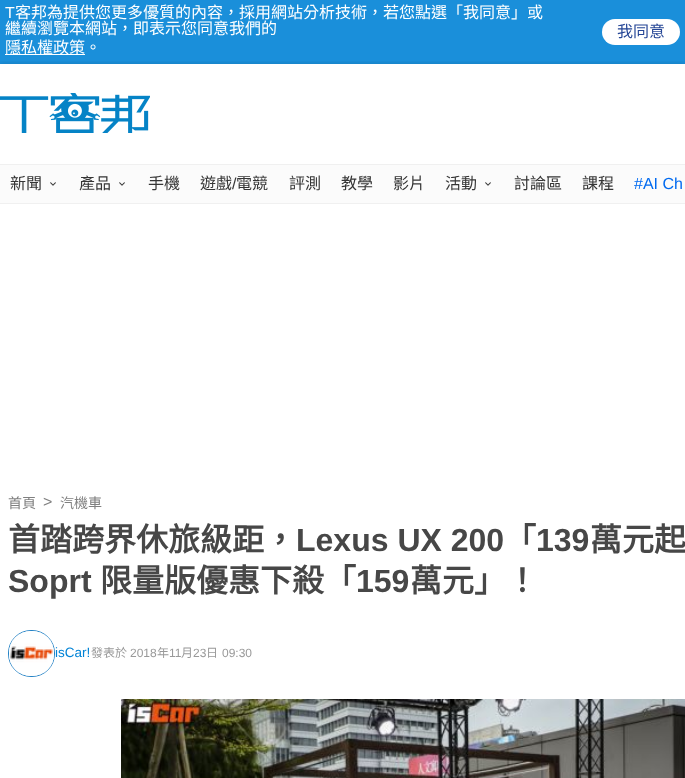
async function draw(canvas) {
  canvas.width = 685;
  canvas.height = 778;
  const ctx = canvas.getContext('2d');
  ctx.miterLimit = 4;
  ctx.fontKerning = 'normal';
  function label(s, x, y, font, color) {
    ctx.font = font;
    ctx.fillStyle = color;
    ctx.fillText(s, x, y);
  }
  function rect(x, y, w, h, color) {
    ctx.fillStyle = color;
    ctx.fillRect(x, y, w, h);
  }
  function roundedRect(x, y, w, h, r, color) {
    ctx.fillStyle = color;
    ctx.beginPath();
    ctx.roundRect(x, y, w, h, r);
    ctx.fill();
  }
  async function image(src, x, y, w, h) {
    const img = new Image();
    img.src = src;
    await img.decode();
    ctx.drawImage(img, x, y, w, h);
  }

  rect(0, 0, 685, 778, '#fff');
  rect(0, 0, 685, 64, '#1a8fda');
  label('T', 5, 18, '16px Liberation Sans', '#fff');
  label('客邦為提供您更多優質的內容，採用網站分析技術，若您點選「我同意」或', 15, 18, '16px Noto Sans CJK TC', '#fff');
  label('繼續瀏覽本網站，即表示您同意我們的', 5, 34, '16px Noto Sans CJK TC', '#fff');
  rect(5, 54, 80, 1, '#fff');
  label('隱私權政策。', 5, 53, '16px Noto Sans CJK TC', '#fff');
  roundedRect(602, 19, 78, 26, 13, '#fff');
  label('我同意', 617, 37, '16px Noto Sans CJK TC', '#254696');
  ctx.save();
  ctx.beginPath();
  ctx.rect(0, 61, 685, 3);
  ctx.clip();
  ctx.fillStyle = '#00000026';
  ctx.filter = 'blur(2.5px)';
  ctx.beginPath();
  ctx.rect(0, 64, 685, 100);
  ctx.fill();
  ctx.filter = 'none';
  ctx.restore();
  await image('assets/img1.png', 0, 93, 150, 40);
  rect(0, 165, 685, 38, '#fbfbfb');
  rect(0, 164, 685, 1, '#f0f0f0');
  rect(0, 203, 685, 1, '#f0f0f0');
  label('新聞', 10, 189, '16px Noto Sans CJK TC', '#353535');
  await image('assets/img2.png', 50, 182, 6, 4);
  label('產品', 79, 189, '16px Noto Sans CJK TC', '#353535');
  await image('assets/img2.png', 119, 182, 6, 4);
  label('手機', 148, 189, '16px Noto Sans CJK TC', '#353535');
  label('遊戲', 200, 189, '16px Noto Sans CJK TC', '#353535');
  label('/', 232, 189, '16px Liberation Sans', '#353535');
  label('電競', 236, 189, '16px Noto Sans CJK TC', '#353535');
  label('評測', 289, 189, '16px Noto Sans CJK TC', '#353535');
  label('教學', 341, 189, '16px Noto Sans CJK TC', '#353535');
  label('影片', 393, 189, '16px Noto Sans CJK TC', '#353535');
  label('活動', 445, 189, '16px Noto Sans CJK TC', '#353535');
  await image('assets/img2.png', 485, 182, 6, 4);
  label('討論區', 514, 189, '16px Noto Sans CJK TC', '#353535');
  label('課程', 582, 189, '16px Noto Sans CJK TC', '#353535');
  label('#AI Ch', 634, 189, '16px Liberation Sans', '#006af0');
  label('首頁', 8, 508, '14px Noto Sans CJK TC', '#808080');
  label('>', 43, 507, '16px Liberation Sans', '#808080');
  label('汽機車', 60, 508, '14px Noto Sans CJK TC', '#808080');
  label('首踏跨界休旅級距，', 8, 551, 'bold 32px Noto Sans CJK TC', '#474747');
  label('Lexus UX 200', 296, 551, 'bold 32px Liberation Sans', '#474747');
  label('「', 504, 551, 'bold 32px Noto Sans CJK TC', '#474747');
  label('139', 536, 551, 'bold 32px Liberation Sans', '#474747');
  label('萬元起', 590, 551, 'bold 32px Noto Sans CJK TC', '#474747');
  label('Soprt', 8, 592, 'bold 32px Liberation Sans', '#474747');
  label('限量版優惠下殺「', 100, 592, 'bold 32px Noto Sans CJK TC', '#474747');
  label('159', 356, 592, 'bold 32px Liberation Sans', '#474747');
  label('萬元」！', 410, 592, 'bold 32px Noto Sans CJK TC', '#474747');
  ctx.beginPath();
  ctx.roundRect(8.5, 630.5, 46, 46, 22.5);
  ctx.strokeStyle = '#2382c5';
  ctx.stroke();
  await image('assets/img3.png', 9, 631, 45, 45);
  label('isCar!', 55, 657, '13.5px Liberation Sans', '#0083d6');
  label('發表於', 91, 657, '12px Noto Sans CJK TC', '#999');
  label('2018', 130, 657, '12px Liberation Sans', '#999');
  label('年', 157, 657, '12px Noto Sans CJK TC', '#999');
  label('11', 169, 657, '12px Liberation Sans', '#999');
  label('月', 181, 657, '12px Noto Sans CJK TC', '#999');
  label('23', 193, 657, '12px Liberation Sans', '#999');
  label('日', 206, 657, '12px Noto Sans CJK TC', '#999');
  label('09:30', 222, 657, '12px Liberation Sans', '#999');
  await image('assets/img4.png', 121, 699, 564, 79);
}

draw(document.querySelector('canvas'));
